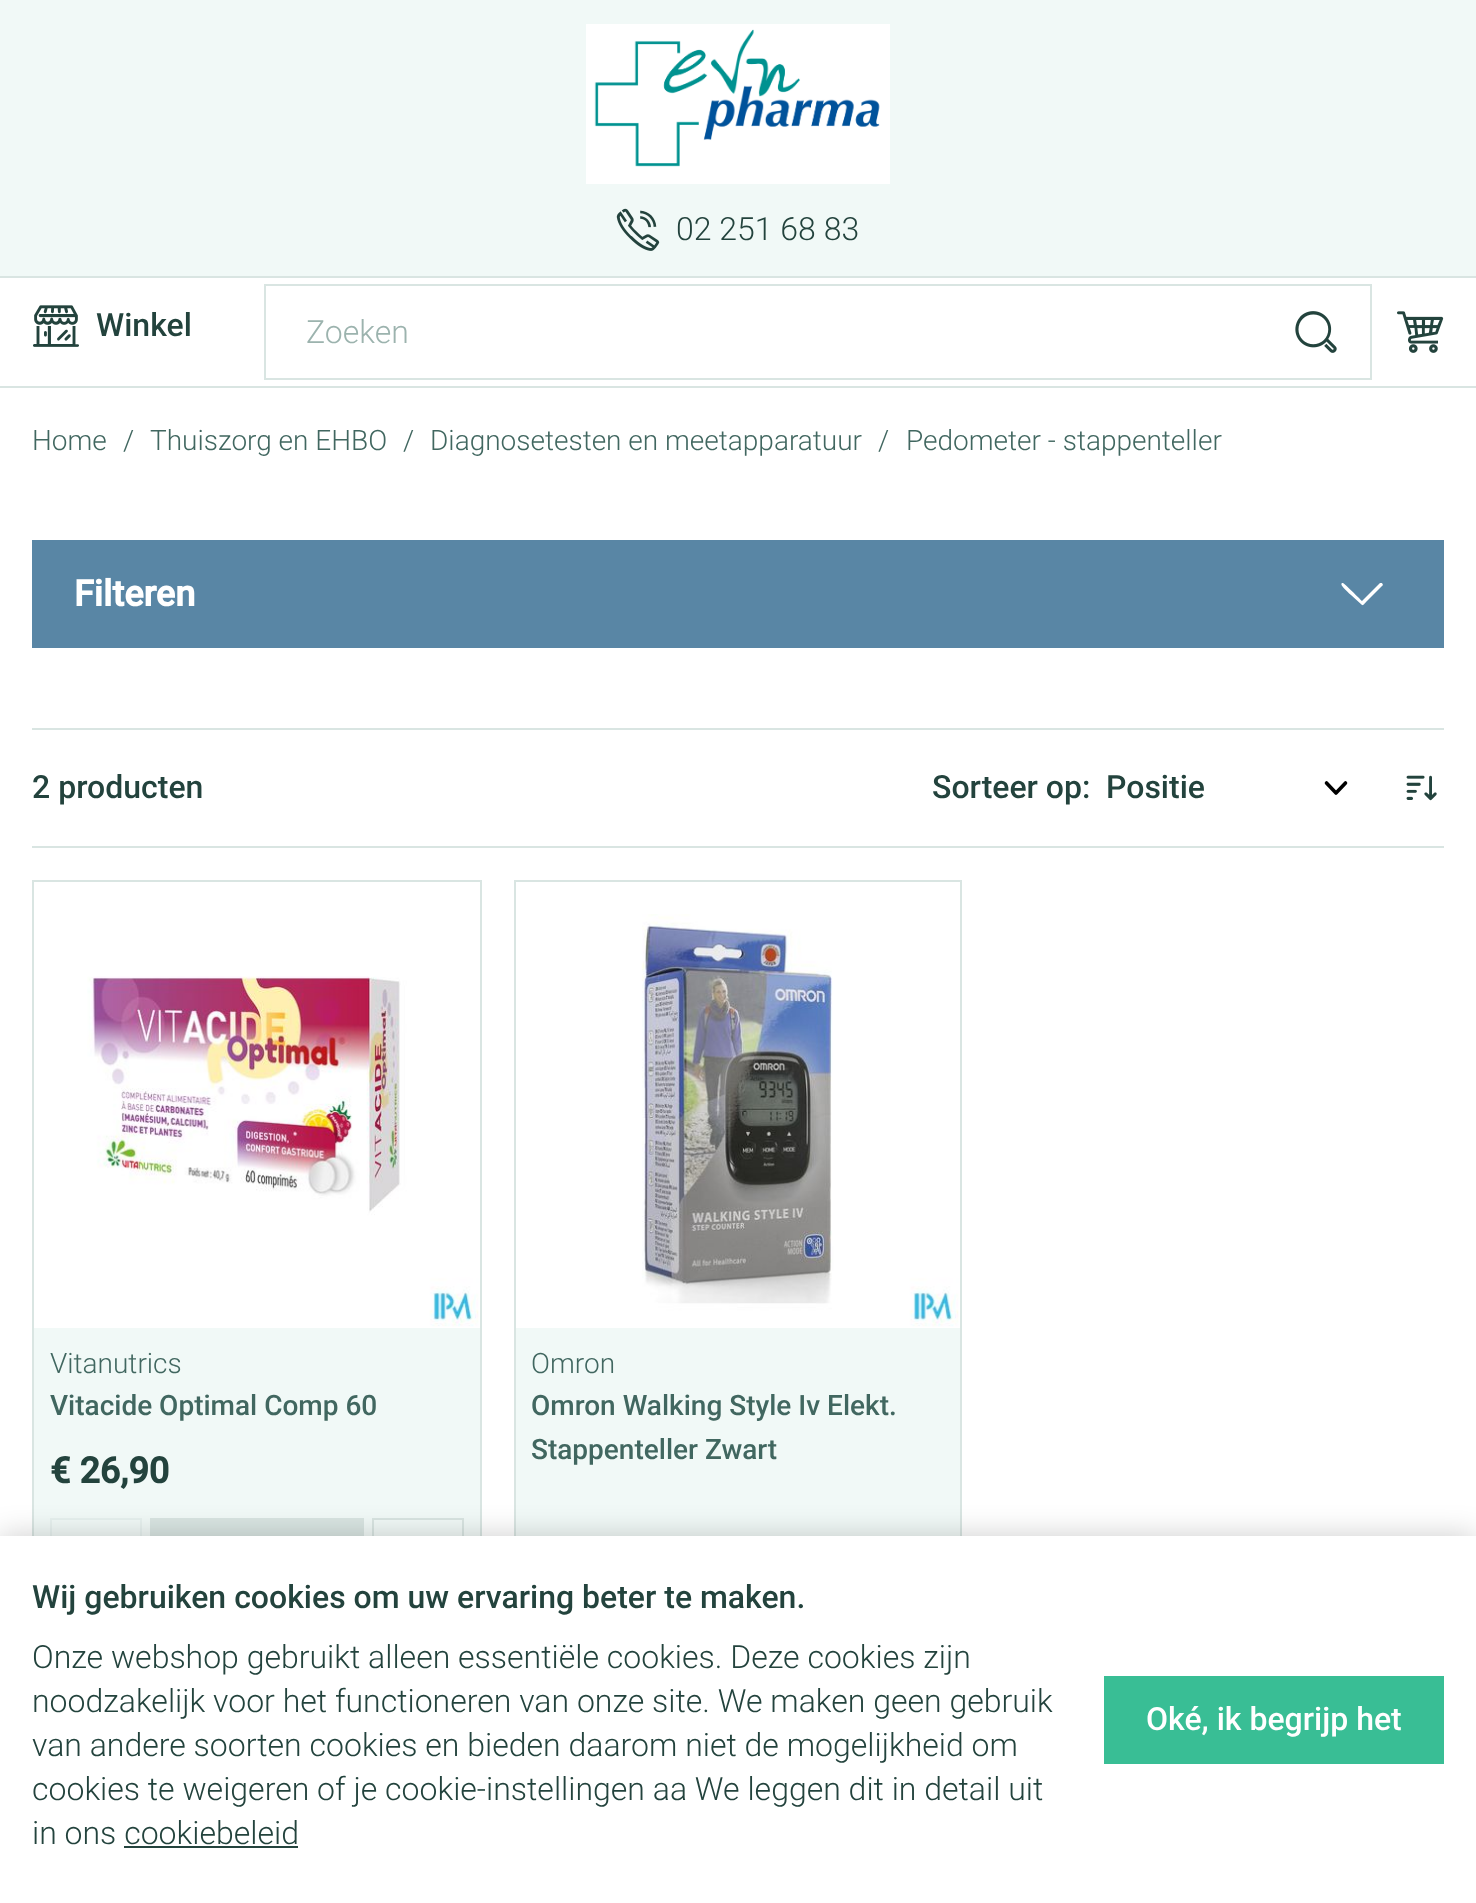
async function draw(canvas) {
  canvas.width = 1476;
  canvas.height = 1903;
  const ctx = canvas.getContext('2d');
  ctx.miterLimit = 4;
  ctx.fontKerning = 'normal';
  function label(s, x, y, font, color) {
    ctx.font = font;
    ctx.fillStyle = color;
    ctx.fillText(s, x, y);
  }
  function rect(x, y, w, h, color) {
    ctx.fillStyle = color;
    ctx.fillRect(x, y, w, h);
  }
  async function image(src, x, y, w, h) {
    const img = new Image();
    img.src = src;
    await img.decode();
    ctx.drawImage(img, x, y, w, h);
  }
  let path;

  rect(0, 0, 1476, 1903, '#fff');
  rect(0, 0, 1476, 276, '#f1f9f7');
  await image('assets/img1.png', 586, 24, 304, 160);
  await image('assets/img2.png', 616, 208, 44, 43);
  label('02 251 68 83', 676, 240, '300 32px Roboto', '#23433d');
  rect(0, 276, 1476, 2, '#d9e5e2');
  rect(0, 386, 1476, 2, '#d9e5e2');
  await image('assets/img3.png', 33, 305, 46, 42);
  label('Winkel', 96, 336, '500 32px Roboto', '#23433d');
  ctx.strokeStyle = '#d9e5e2';
  ctx.lineWidth = 2;
  ctx.strokeRect(265, 285, 1106, 94);
  label('Zoeken', 306, 343, '300 32px Roboto', '#9cb3ae');
  await image('assets/img4.png', 1295, 311, 42, 42);
  await image('assets/img5.png', 1397, 311, 47, 42);
  label('Home', 32, 450, '300 28px Roboto', '#416760');
  label('/', 123, 450, '300 28px Roboto', '#416760');
  label('Thuiszorg en EHBO', 150, 450, '300 28px Roboto', '#416760');
  label('/', 403, 450, '300 28px Roboto', '#416760');
  label('Diagnosetesten en meetapparatuur', 430, 450, '300 28px Roboto', '#416760');
  label('/', 878, 450, '300 28px Roboto', '#416760');
  label('Pedometer - stappenteller', 906, 450, '300 28px Roboto', '#416760');
  rect(32, 540, 1412, 108, '#5986a5');
  label('Filteren', 74, 606, 'bold 36px Roboto', '#fff');
  path = new Path2D('M1382 583C1382 583 1381 583 1380 583L1362 601C1360 599 1344 583 1343 583C1337 583 1349 593 1351 595L1362 605C1363 606 1366 602 1366 602L1383 585Z');
  ctx.fill(path);
  rect(32, 728, 1412, 2, '#d9e5e2');
  label('2 producten', 32, 798, '500 32px Roboto', '#23433d');
  label('Sorteer op:', 932, 798, '500 32px Roboto', '#23433d');
  path = new Path2D('M1326.5 783L1336 793L1345.5 783');
  ctx.strokeStyle = '#000';
  ctx.lineWidth = 3.6;
  ctx.lineCap = 'round';
  ctx.lineJoin = 'round';
  ctx.stroke(path);
  label('Positie', 1106, 798, '500 32px Roboto', '#23433d');
  await image('assets/img6.png', 1406, 775, 31, 26);
  rect(32, 846, 1412, 2, '#d9e5e2');
  ctx.strokeStyle = '#d9e5e2';
  ctx.lineWidth = 2;
  ctx.lineJoin = 'miter';
  ctx.strokeRect(33, 881, 448, 846);
  await image('assets/img7.png', 87, 976, 392, 351);
  rect(34, 1328, 446, 208, '#f1f9f7');
  label('Vitanutrics', 50, 1373, '300 28px Roboto', '#416760');
  label('Vitacide Optimal Comp 60', 50, 1415, '500 28px Roboto', '#416760');
  label('€ 26,90', 50, 1483, 'bold 36px Roboto', '#23433d');
  ctx.strokeStyle = '#e7f1ef';
  ctx.strokeRect(51, 1519, 90, 94);
  rect(150, 1518, 214, 18, '#d9e5e2');
  ctx.strokeStyle = '#d9e5e2';
  ctx.strokeRect(373, 1519, 90, 94);
  ctx.strokeRect(515, 881, 446, 846);
  await image('assets/img8.png', 641, 914, 318, 413);
  rect(516, 1328, 444, 208, '#f1f9f7');
  label('Omron', 531, 1373, '300 28px Roboto', '#416760');
  label('Omron Walking Style Iv Elekt.', 531, 1415, '500 28px Roboto', '#416760');
  label('Stappenteller Zwart', 531, 1459, '500 28px Roboto', '#416760');
  ctx.fillStyle = '#00000033';
  ctx.filter = 'blur(15px)';
  ctx.beginPath();
  ctx.rect(0, 1536, 1476, 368);
  ctx.fill();
  ctx.filter = 'none';
  rect(0, 1536, 1476, 367, '#fff');
  label('Wij gebruiken cookies om uw ervaring beter te maken.', 32, 1608, '500 32px Roboto', '#23433d');
  label('Onze webshop gebruikt alleen essentiële cookies. Deze cookies zijn', 32, 1668, '300 32px Roboto', '#23433d');
  label('noodzakelijk voor het functioneren van onze site. We maken geen gebruik', 32, 1712, '300 32px Roboto', '#23433d');
  label('van andere soorten cookies en bieden daarom niet de mogelijkheid om', 32, 1756, '300 32px Roboto', '#23433d');
  label('cookies te weigeren of je cookie-instellingen aa We leggen dit in detail uit', 32, 1800, '300 32px Roboto', '#23433d');
  label('in ons cookiebeleid', 32, 1844, '300 32px Roboto', '#23433d');
  rect(124, 1846, 174, 2, '#23433d');
  rect(1104, 1676, 340, 88, '#39be95');
  label('Oké, ik begrijp het', 1146, 1730, '500 32px Roboto', '#fff');
}

draw(document.querySelector('canvas'));
